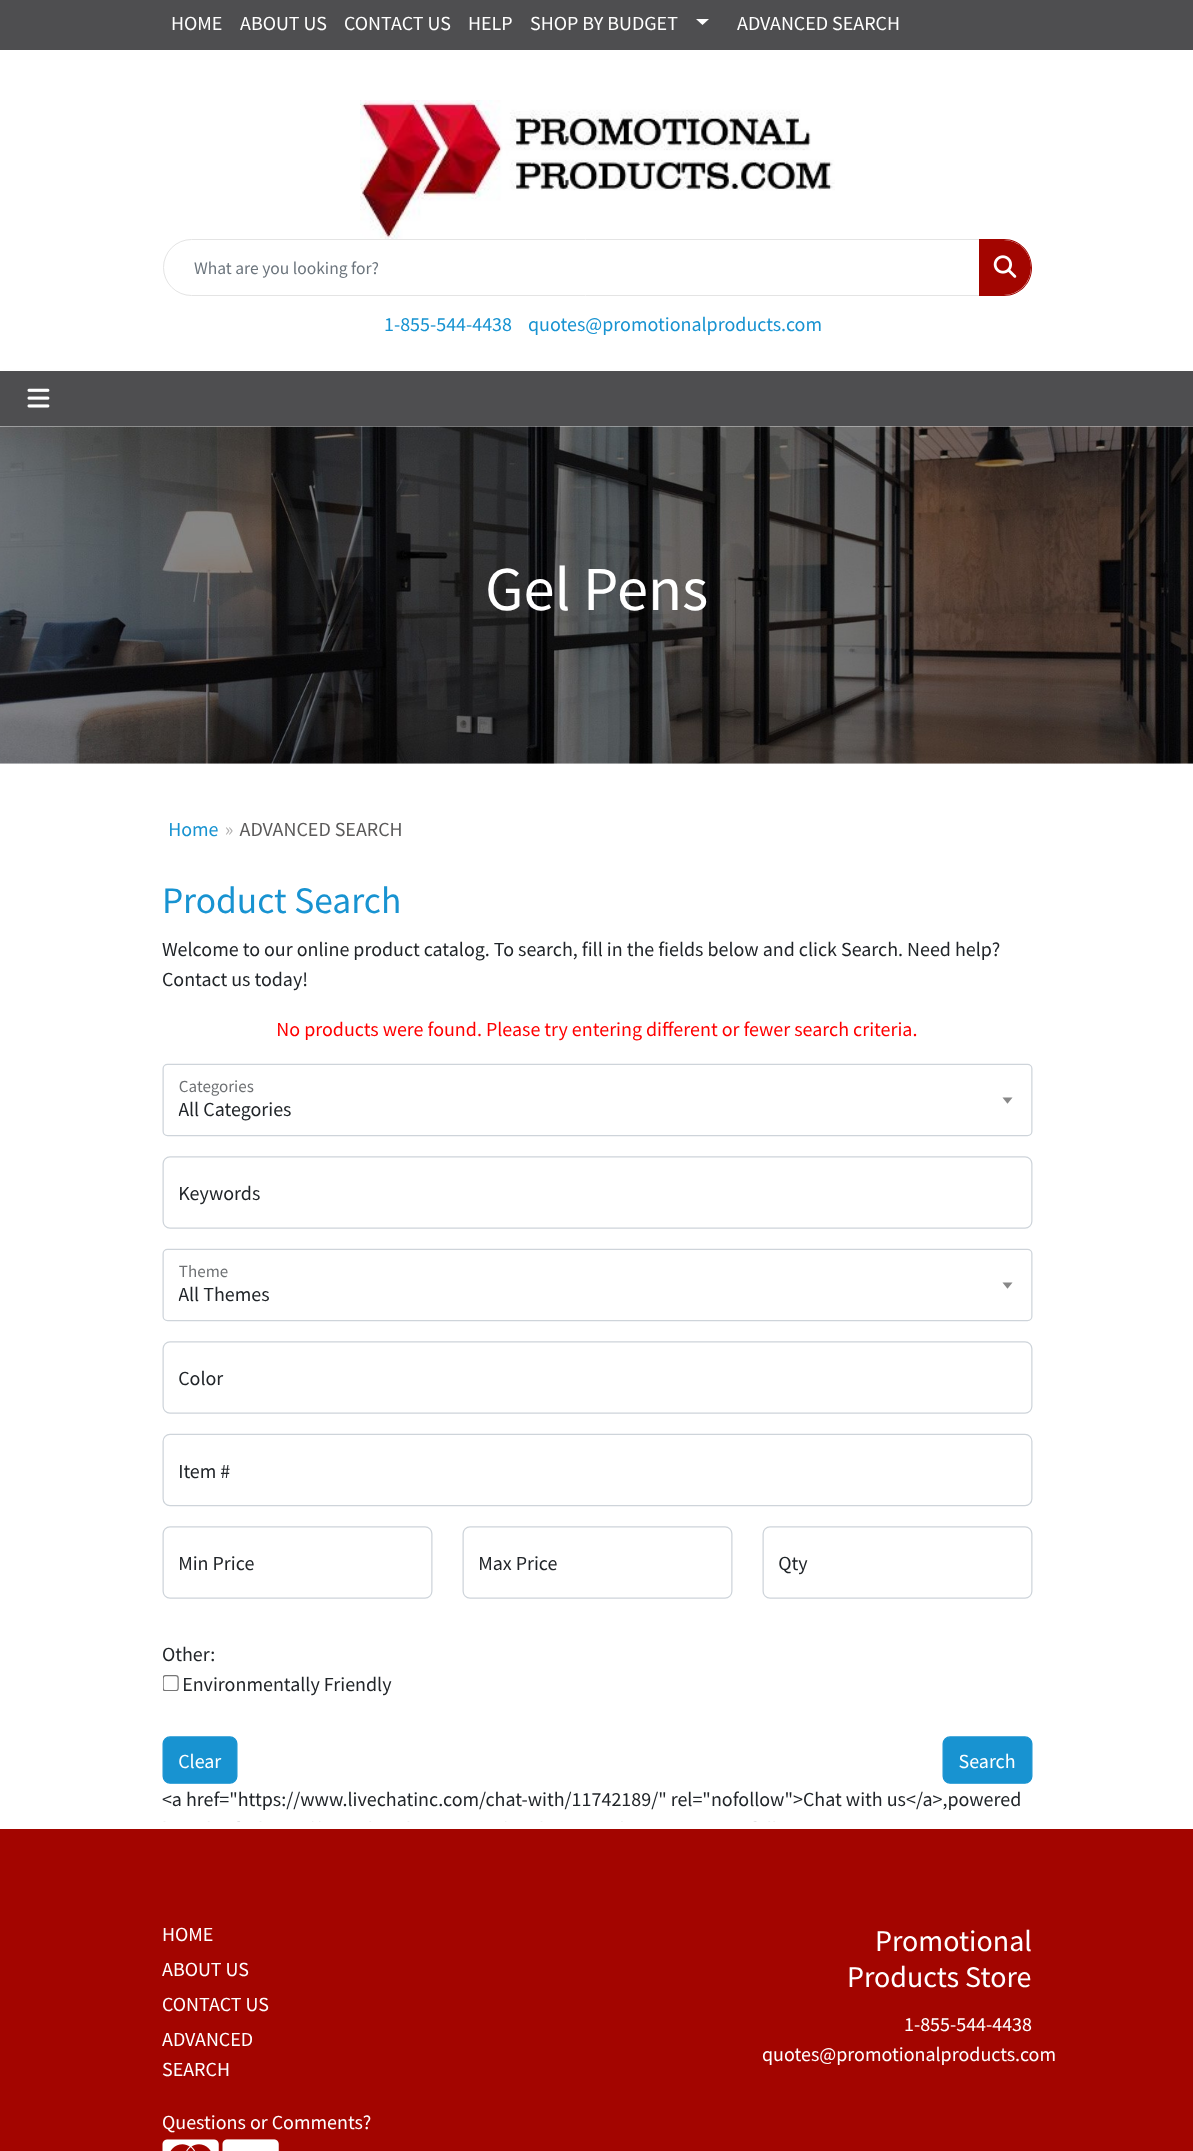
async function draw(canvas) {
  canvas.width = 1193;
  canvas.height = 2151;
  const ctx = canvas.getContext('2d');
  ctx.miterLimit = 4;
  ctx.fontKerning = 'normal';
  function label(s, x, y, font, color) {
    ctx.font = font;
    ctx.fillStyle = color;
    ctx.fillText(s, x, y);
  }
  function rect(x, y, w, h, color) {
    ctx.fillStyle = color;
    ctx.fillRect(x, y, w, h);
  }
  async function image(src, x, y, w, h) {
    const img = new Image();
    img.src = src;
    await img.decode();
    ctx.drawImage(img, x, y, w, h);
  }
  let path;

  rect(0, 0, 1193, 2151, '#fff');
  rect(0, 0, 1193, 50, '#4e4e50');
  label('HOME', 171, 30, '20px Source Sans Pro', '#fff');
  label('ABOUT US', 240, 30, '20px Source Sans Pro', '#fff');
  label('CONTACT US', 344, 30, '20px Source Sans Pro', '#fff');
  label('HELP', 468, 30, '20px Source Sans Pro', '#fff');
  label('SHOP BY BUDGET', 530, 30, '20px Source Sans Pro', '#fff');
  path = new Path2D('M696 19H709L702.5 25Z');
  ctx.fill(path);
  label('ADVANCED SEARCH', 737, 30, '20px Source Sans Pro', '#fff');
  await image('assets/img1.png', 360, 100, 475, 139);
  ctx.beginPath();
  ctx.roundRect(163.5, 239.5, 816, 56, [28, 0, 0, 28]);
  ctx.strokeStyle = '#e4e4e4';
  ctx.stroke();
  label('What are you looking for?', 194, 274, '17.5px Source Sans Pro', '#6c757d');
  ctx.fillStyle = '#a30500';
  ctx.beginPath();
  ctx.roundRect(979, 240, 52, 55, [0, 27.5, 27.5, 0]);
  ctx.fill();
  path = new Path2D('M979 239H1004C1020 239 1032 252 1032 268C1032 283 1020 296 1004 296H979ZM979 240H1004C1019 240 1031 252 1031 268C1031 283 1019 295 1004 295H979Z');
  ctx.fill(path, 'evenodd');
  await image('assets/img2.png', 993, 255, 24, 23);
  label('1-855-544-4438', 384, 331, '20px Source Sans Pro', '#1893d1');
  label('quotes@promotionalproducts.com', 528, 331, '20px Source Sans Pro', '#1893d1');
  ctx.fillStyle = '#00000012';
  ctx.filter = 'blur(2.5px)';
  ctx.beginPath();
  ctx.rect(0, 374, 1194, 55);
  ctx.fill();
  ctx.filter = 'none';
  rect(0, 371, 1193, 55, '#4e4e50');
  await image('assets/img3.png', 27, 388, 23, 20);
  await image('assets/img4.png', 0, 426, 1193, 338);
  label('Gel Pens', 485, 610, '62.5px Source Sans Pro', '#fff');
  await image('assets/img5.png', 162, 822, 871, 1000);
  rect(0, 1829, 1193, 322, '#a30500');
  label('HOME', 162, 1941, '20px Source Sans Pro', '#fff');
  label('ABOUT US', 162, 1976, '20px Source Sans Pro', '#fff');
  label('CONTACT US', 162, 2011, '20px Source Sans Pro', '#fff');
  label('ADVANCED', 162, 2046, '20px Source Sans Pro', '#fff');
  label('SEARCH', 162, 2076, '20px Source Sans Pro', '#fff');
  label('Questions or Comments?', 162, 2129, '20px Source Sans Pro', '#fff');
  await image('assets/img6.png', 162, 2139, 57, 12);
  await image('assets/img7.png', 222, 2139, 57, 12);
  label('Promotional', 875, 1951, '30px Source Sans Pro', '#fff');
  label('Products Store', 847, 1987, '30px Source Sans Pro', '#fff');
  label('1-855-544-4438', 904, 2031, '20px Source Sans Pro', '#fff');
  label('quotes@promotionalproducts.com', 762, 2061, '20px Source Sans Pro', '#fff');
}

draw(document.querySelector('canvas'));
